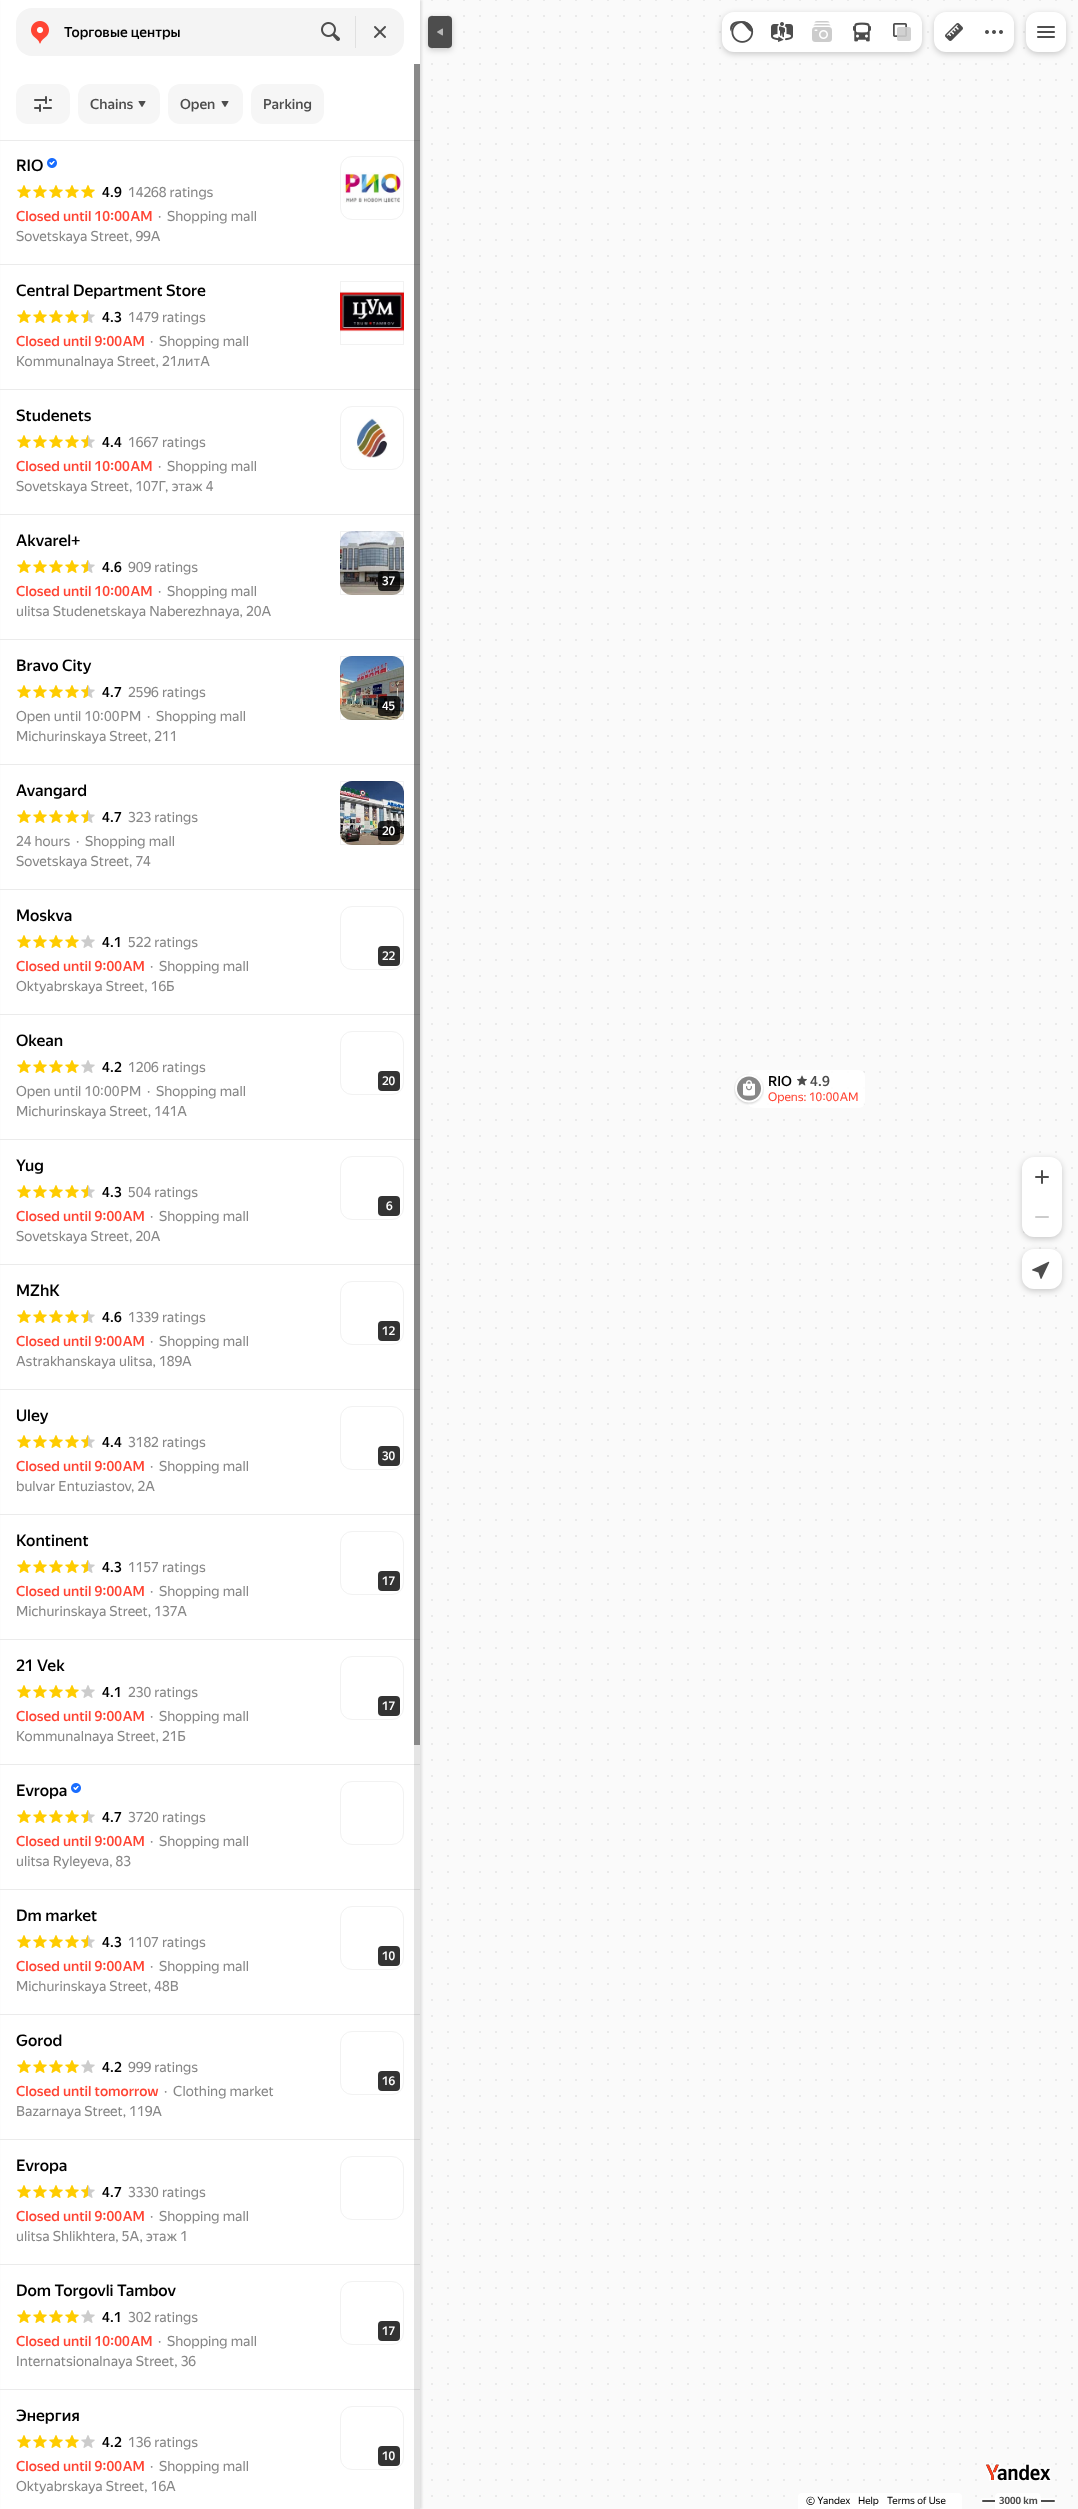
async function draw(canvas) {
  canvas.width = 1078;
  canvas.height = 2509;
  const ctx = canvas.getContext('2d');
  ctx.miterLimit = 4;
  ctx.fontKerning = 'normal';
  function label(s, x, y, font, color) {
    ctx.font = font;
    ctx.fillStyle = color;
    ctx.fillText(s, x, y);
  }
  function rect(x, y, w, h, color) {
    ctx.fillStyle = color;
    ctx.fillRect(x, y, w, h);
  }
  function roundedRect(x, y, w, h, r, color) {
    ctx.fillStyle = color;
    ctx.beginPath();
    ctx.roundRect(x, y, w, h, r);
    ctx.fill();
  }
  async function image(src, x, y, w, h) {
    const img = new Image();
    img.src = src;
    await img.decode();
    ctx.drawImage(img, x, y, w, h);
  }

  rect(0, 0, 1078, 2509, '#fff');
  await image('assets/img1.png', 420, 0, 658, 2509);
  ctx.fillStyle = '#0000001a';
  ctx.filter = 'blur(1px)';
  ctx.beginPath();
  ctx.rect(2, 0, 420, 2509);
  ctx.fill();
  ctx.filter = 'none';
  ctx.fillStyle = '#00000033';
  ctx.filter = 'blur(3px)';
  ctx.beginPath();
  ctx.roundRect(428, 18, 24, 32, 4);
  ctx.fill();
  ctx.filter = 'none';
  rect(1, 0, 419, 2509, '#fff');
  roundedRect(16, 8, 388, 48, 16, '#f4f4f4');
  await image('assets/img2.png', 31, 21, 18, 23);
  label('Торговые центры', 64, 37, '500 14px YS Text', '#000');
  await image('assets/img3.png', 321, 22, 19, 19);
  rect(355, 16, 1, 32, '#e0e0e0');
  await image('assets/img4.png', 374, 26, 12, 12);
  ctx.fillStyle = '#00000033';
  ctx.filter = 'blur(3px)';
  ctx.beginPath();
  ctx.roundRect(722, 14, 200, 40, 12);
  ctx.fill();
  ctx.filter = 'none';
  ctx.fillStyle = '#fff';
  ctx.beginPath();
  ctx.roundRect(722, 12, 40, 40, [12, 0, 0, 12]);
  ctx.fill();
  await image('assets/img5.png', 730, 21, 24, 22);
  rect(762, 12, 120, 40, '#fff');
  await image('assets/img6.png', 771, 22, 22, 20);
  ctx.beginPath();
  ctx.roundRect(882, 12, 40, 40, [0, 12, 12, 0]);
  ctx.fill();
  await image('assets/img7.png', 893, 23, 18, 18);
  await image('assets/img8.png', 812, 21, 20, 21);
  await image('assets/img9.png', 853, 22, 18, 20);
  ctx.fillStyle = '#00000033';
  ctx.filter = 'blur(3px)';
  ctx.beginPath();
  ctx.roundRect(934, 14, 80, 40, 12);
  ctx.fill();
  ctx.filter = 'none';
  ctx.fillStyle = '#fff';
  ctx.beginPath();
  ctx.roundRect(934, 12, 40, 40, [12, 0, 0, 12]);
  ctx.fill();
  await image('assets/img10.png', 945, 23, 18, 18);
  ctx.beginPath();
  ctx.roundRect(974, 12, 40, 40, [0, 12, 12, 0]);
  ctx.fill();
  await image('assets/img11.png', 985, 30, 18, 4);
  ctx.fillStyle = '#00000033';
  ctx.filter = 'blur(3px)';
  ctx.beginPath();
  ctx.roundRect(1026, 14, 40, 40, 12);
  ctx.fill();
  ctx.filter = 'none';
  roundedRect(1026, 12, 40, 40, 12, '#fff');
  await image('assets/img12.png', 1037, 26, 18, 12);
  ctx.fillStyle = '#00000033';
  ctx.filter = 'blur(3px)';
  ctx.beginPath();
  ctx.roundRect(1022, 1159, 40, 80, 12);
  ctx.fill();
  ctx.filter = 'none';
  ctx.fillStyle = '#fff';
  ctx.beginPath();
  ctx.roundRect(1022, 1157, 40, 40, [12, 12, 0, 0]);
  ctx.fill();
  await image('assets/img13.png', 1035, 1170, 14, 14);
  ctx.beginPath();
  ctx.roundRect(1022, 1197, 40, 40, [0, 0, 12, 12]);
  ctx.fill();
  await image('assets/img14.png', 1035, 1216, 14, 2);
  ctx.fillStyle = '#00000033';
  ctx.filter = 'blur(3px)';
  ctx.beginPath();
  ctx.roundRect(1022, 1251, 40, 40, 12);
  ctx.fill();
  ctx.filter = 'none';
  roundedRect(1022, 1249, 40, 40, 12, '#fff');
  await image('assets/img15.png', 1032, 1261, 18, 18);
  roundedRect(428, 16, 24, 32, 4, '#4d4d4d');
  await image('assets/img16.png', 437, 28, 6, 8);
  rect(0, 140, 420, 1, '#ebebeb');
  roundedRect(16, 84, 54, 40, 12, '#f6f6f6');
  await image('assets/img17.png', 34, 96, 18, 16);
  roundedRect(78, 84, 82, 40, 12, '#f6f6f6');
  label('Chains', 90, 109, '500 14px YS Text', '#4d4d4d');
  await image('assets/img18.png', 138, 101, 8, 6);
  roundedRect(168, 84, 75, 40, 12, '#f6f6f6');
  label('Open', 180, 109, '500 14px YS Text', '#4d4d4d');
  await image('assets/img18.png', 221, 101, 8, 6);
  roundedRect(251, 84, 73, 40, 12, '#f6f6f6');
  label('Parking', 263, 109, '500 14px YS Text', '#4d4d4d');
  rect(0, 264, 420, 1, '#ebebeb');
  label('RIO', 16, 171, '500 16px YS Text', '#000');
  await image('assets/img19.png', 47, 158, 10, 10);
  await image('assets/img20.png', 343, 172, 59, 31);
  ctx.beginPath();
  ctx.roundRect(340.5, 156.5, 63, 63, 11.5);
  ctx.strokeStyle = '#f2f2f2';
  ctx.stroke();
  await image('assets/img21.png', 17, 185, 14, 13);
  await image('assets/img21.png', 33, 185, 14, 13);
  await image('assets/img21.png', 49, 185, 14, 13);
  await image('assets/img21.png', 65, 185, 14, 13);
  await image('assets/img21.png', 81, 185, 14, 13);
  label('4.9', 102, 197, '500 14px YS Text', '#000');
  label('14268 ratings', 128, 197, '14px YS Text', '#878787');
  label('Closed until 10:00 AM', 16, 221, '500 14px YS Text', '#f43');
  label('·', 158, 221, '14px YS Text', '#878787');
  label('Shopping mall', 167, 221, '14px YS Text', '#878787');
  label('Sovetskaya Street, 99А', 16, 241, '14px YS Text', '#878787');
  rect(0, 389, 420, 1, '#ebebeb');
  label('Central Department Store', 16, 296, '500 16px YS Text', '#000');
  await image('assets/img22.png', 340, 291, 64, 41);
  ctx.strokeStyle = '#0000000d';
  ctx.strokeRect(340.5, 281.5, 63, 63);
  await image('assets/img21.png', 17, 310, 14, 13);
  await image('assets/img21.png', 33, 310, 14, 13);
  await image('assets/img21.png', 49, 310, 14, 13);
  await image('assets/img21.png', 65, 310, 14, 13);
  await image('assets/img23.png', 81, 310, 14, 13);
  label('4.3', 102, 322, '500 14px YS Text', '#000');
  label('1479 ratings', 128, 322, '14px YS Text', '#878787');
  label('Closed until 9:00 AM', 16, 346, '500 14px YS Text', '#f43');
  label('·', 150, 346, '14px YS Text', '#878787');
  label('Shopping mall', 159, 346, '14px YS Text', '#878787');
  label('Kommunalnaya Street, 21литА', 16, 366, '14px YS Text', '#878787');
  rect(0, 514, 420, 1, '#ebebeb');
  label('Studenets', 16, 421, '500 16px YS Text', '#000');
  await image('assets/img24.png', 357, 418, 31, 40);
  ctx.beginPath();
  ctx.roundRect(340.5, 406.5, 63, 63, 11.5);
  ctx.strokeStyle = '#f2f2f2';
  ctx.stroke();
  await image('assets/img21.png', 17, 435, 14, 13);
  await image('assets/img21.png', 33, 435, 14, 13);
  await image('assets/img21.png', 49, 435, 14, 13);
  await image('assets/img21.png', 65, 435, 14, 13);
  await image('assets/img23.png', 81, 435, 14, 13);
  label('4.4', 102, 447, '500 14px YS Text', '#000');
  label('1667 ratings', 128, 447, '14px YS Text', '#878787');
  label('Closed until 10:00 AM', 16, 471, '500 14px YS Text', '#f43');
  label('·', 158, 471, '14px YS Text', '#878787');
  label('Shopping mall', 167, 471, '14px YS Text', '#878787');
  label('Sovetskaya Street, 107Г, этаж 4', 16, 491, '14px YS Text', '#878787');
  rect(0, 639, 420, 1, '#ebebeb');
  label('Akvarel+', 16, 546, '500 16px YS Text', '#000');
  await image('assets/img21.png', 17, 560, 14, 13);
  await image('assets/img21.png', 33, 560, 14, 13);
  await image('assets/img21.png', 49, 560, 14, 13);
  await image('assets/img21.png', 65, 560, 14, 13);
  await image('assets/img23.png', 81, 560, 14, 13);
  label('4.6', 102, 572, '500 14px YS Text', '#000');
  label('909 ratings', 128, 572, '14px YS Text', '#878787');
  await image('assets/img25.png', 340, 531, 64, 64);
  ctx.strokeStyle = '#0000000d';
  ctx.strokeRect(340.5, 531.5, 63, 63);
  roundedRect(378, 571, 22, 20, 4, '#000000cc');
  label('37', 382, 585, '500 12px YS Text', '#fff');
  label('Closed until 10:00 AM', 16, 596, '500 14px YS Text', '#f43');
  label('·', 158, 596, '14px YS Text', '#878787');
  label('Shopping mall', 167, 596, '14px YS Text', '#878787');
  label('ulitsa Studenetskaya Naberezhnaya, 20А', 16, 616, '14px YS Text', '#878787');
  rect(0, 764, 420, 1, '#ebebeb');
  label('Bravo City', 16, 671, '500 16px YS Text', '#000');
  await image('assets/img21.png', 17, 685, 14, 13);
  await image('assets/img21.png', 33, 685, 14, 13);
  await image('assets/img21.png', 49, 685, 14, 13);
  await image('assets/img21.png', 65, 685, 14, 13);
  await image('assets/img23.png', 81, 685, 14, 13);
  label('4.7', 102, 697, '500 14px YS Text', '#000');
  label('2596 ratings', 128, 697, '14px YS Text', '#878787');
  await image('assets/img26.png', 340, 656, 64, 64);
  ctx.strokeRect(340.5, 656.5, 63, 63);
  roundedRect(378, 696, 22, 20, 4, '#000000cc');
  label('45', 382, 710, '500 12px YS Text', '#fff');
  label('Open until 10:00 PM', 16, 721, '14px YS Text', '#878787');
  label('·', 147, 721, '14px YS Text', '#878787');
  label('Shopping mall', 156, 721, '14px YS Text', '#878787');
  label('Michurinskaya Street, 211', 16, 741, '14px YS Text', '#878787');
  rect(0, 889, 420, 1, '#ebebeb');
  label('Avangard', 16, 796, '500 16px YS Text', '#000');
  await image('assets/img21.png', 17, 810, 14, 13);
  await image('assets/img21.png', 33, 810, 14, 13);
  await image('assets/img21.png', 49, 810, 14, 13);
  await image('assets/img21.png', 65, 810, 14, 13);
  await image('assets/img23.png', 81, 810, 14, 13);
  label('4.7', 102, 822, '500 14px YS Text', '#000');
  label('323 ratings', 128, 822, '14px YS Text', '#878787');
  await image('assets/img27.png', 340, 781, 64, 64);
  ctx.strokeRect(340.5, 781.5, 63, 63);
  roundedRect(378, 821, 22, 20, 4, '#000000cc');
  label('20', 382, 835, '500 12px YS Text', '#fff');
  label('24 hours', 16, 846, '14px YS Text', '#878787');
  label('·', 76, 846, '14px YS Text', '#878787');
  label('Shopping mall', 85, 846, '14px YS Text', '#878787');
  label('Sovetskaya Street, 74', 16, 866, '14px YS Text', '#878787');
  rect(0, 1014, 420, 1, '#ebebeb');
  label('Moskva', 16, 921, '500 16px YS Text', '#000');
  await image('assets/img21.png', 17, 935, 14, 13);
  await image('assets/img21.png', 33, 935, 14, 13);
  await image('assets/img21.png', 49, 935, 14, 13);
  await image('assets/img21.png', 65, 935, 14, 13);
  await image('assets/img28.png', 81, 935, 14, 13);
  label('4.1', 102, 947, '500 14px YS Text', '#000');
  label('522 ratings', 128, 947, '14px YS Text', '#878787');
  ctx.beginPath();
  ctx.roundRect(340.5, 906.5, 63, 63, 11.5);
  ctx.strokeStyle = '#f2f2f2';
  ctx.stroke();
  roundedRect(378, 946, 22, 20, 4, '#333');
  label('22', 382, 960, '500 12px YS Text', '#fff');
  label('Closed until 9:00 AM', 16, 971, '500 14px YS Text', '#f43');
  label('·', 150, 971, '14px YS Text', '#878787');
  label('Shopping mall', 159, 971, '14px YS Text', '#878787');
  label('Oktyabrskaya Street, 16Б', 16, 991, '14px YS Text', '#878787');
  rect(0, 1139, 420, 1, '#ebebeb');
  label('Okean', 16, 1046, '500 16px YS Text', '#000');
  await image('assets/img21.png', 17, 1060, 14, 13);
  await image('assets/img21.png', 33, 1060, 14, 13);
  await image('assets/img21.png', 49, 1060, 14, 13);
  await image('assets/img21.png', 65, 1060, 14, 13);
  await image('assets/img28.png', 81, 1060, 14, 13);
  label('4.2', 102, 1072, '500 14px YS Text', '#000');
  label('1206 ratings', 128, 1072, '14px YS Text', '#878787');
  ctx.beginPath();
  ctx.roundRect(340.5, 1031.5, 63, 63, 11.5);
  ctx.stroke();
  roundedRect(378, 1071, 22, 20, 4, '#333');
  label('20', 382, 1085, '500 12px YS Text', '#fff');
  label('Open until 10:00 PM', 16, 1096, '14px YS Text', '#878787');
  label('·', 147, 1096, '14px YS Text', '#878787');
  label('Shopping mall', 156, 1096, '14px YS Text', '#878787');
  label('Michurinskaya Street, 141А', 16, 1116, '14px YS Text', '#878787');
  rect(0, 1264, 420, 1, '#ebebeb');
  label('Yug', 16, 1171, '500 16px YS Text', '#000');
  await image('assets/img21.png', 17, 1185, 14, 13);
  await image('assets/img21.png', 33, 1185, 14, 13);
  await image('assets/img21.png', 49, 1185, 14, 13);
  await image('assets/img21.png', 65, 1185, 14, 13);
  await image('assets/img23.png', 81, 1185, 14, 13);
  label('4.3', 102, 1197, '500 14px YS Text', '#000');
  label('504 ratings', 128, 1197, '14px YS Text', '#878787');
  ctx.beginPath();
  ctx.roundRect(340.5, 1156.5, 63, 63, 11.5);
  ctx.stroke();
  roundedRect(378, 1196, 22, 20, 4, '#333');
  label('6', 386, 1210, '500 12px YS Text', '#fff');
  label('Closed until 9:00 AM', 16, 1221, '500 14px YS Text', '#f43');
  label('·', 150, 1221, '14px YS Text', '#878787');
  label('Shopping mall', 159, 1221, '14px YS Text', '#878787');
  label('Sovetskaya Street, 20А', 16, 1241, '14px YS Text', '#878787');
  rect(0, 1389, 420, 1, '#ebebeb');
  label('MZhK', 16, 1296, '500 16px YS Text', '#000');
  await image('assets/img21.png', 17, 1310, 14, 13);
  await image('assets/img21.png', 33, 1310, 14, 13);
  await image('assets/img21.png', 49, 1310, 14, 13);
  await image('assets/img21.png', 65, 1310, 14, 13);
  await image('assets/img23.png', 81, 1310, 14, 13);
  label('4.6', 102, 1322, '500 14px YS Text', '#000');
  label('1339 ratings', 128, 1322, '14px YS Text', '#878787');
  ctx.beginPath();
  ctx.roundRect(340.5, 1281.5, 63, 63, 11.5);
  ctx.stroke();
  roundedRect(378, 1321, 22, 20, 4, '#333');
  label('12', 382, 1335, '500 12px YS Text', '#fff');
  label('Closed until 9:00 AM', 16, 1346, '500 14px YS Text', '#f43');
  label('·', 150, 1346, '14px YS Text', '#878787');
  label('Shopping mall', 159, 1346, '14px YS Text', '#878787');
  label('Astrakhanskaya ulitsa, 189А', 16, 1366, '14px YS Text', '#878787');
  rect(0, 1514, 420, 1, '#ebebeb');
  label('Uley', 16, 1421, '500 16px YS Text', '#000');
  await image('assets/img21.png', 17, 1435, 14, 13);
  await image('assets/img21.png', 33, 1435, 14, 13);
  await image('assets/img21.png', 49, 1435, 14, 13);
  await image('assets/img21.png', 65, 1435, 14, 13);
  await image('assets/img23.png', 81, 1435, 14, 13);
  label('4.4', 102, 1447, '500 14px YS Text', '#000');
  label('3182 ratings', 128, 1447, '14px YS Text', '#878787');
  ctx.beginPath();
  ctx.roundRect(340.5, 1406.5, 63, 63, 11.5);
  ctx.stroke();
  roundedRect(378, 1446, 22, 20, 4, '#333');
  label('30', 382, 1460, '500 12px YS Text', '#fff');
  label('Closed until 9:00 AM', 16, 1471, '500 14px YS Text', '#f43');
  label('·', 150, 1471, '14px YS Text', '#878787');
  label('Shopping mall', 159, 1471, '14px YS Text', '#878787');
  label('bulvar Entuziastov, 2А', 16, 1491, '14px YS Text', '#878787');
  rect(0, 1639, 420, 1, '#ebebeb');
  label('Kontinent', 16, 1546, '500 16px YS Text', '#000');
  await image('assets/img21.png', 17, 1560, 14, 13);
  await image('assets/img21.png', 33, 1560, 14, 13);
  await image('assets/img21.png', 49, 1560, 14, 13);
  await image('assets/img21.png', 65, 1560, 14, 13);
  await image('assets/img23.png', 81, 1560, 14, 13);
  label('4.3', 102, 1572, '500 14px YS Text', '#000');
  label('1157 ratings', 128, 1572, '14px YS Text', '#878787');
  ctx.beginPath();
  ctx.roundRect(340.5, 1531.5, 63, 63, 11.5);
  ctx.stroke();
  roundedRect(378, 1571, 22, 20, 4, '#333');
  label('17', 382, 1585, '500 12px YS Text', '#fff');
  label('Closed until 9:00 AM', 16, 1596, '500 14px YS Text', '#f43');
  label('·', 150, 1596, '14px YS Text', '#878787');
  label('Shopping mall', 159, 1596, '14px YS Text', '#878787');
  label('Michurinskaya Street, 137А', 16, 1616, '14px YS Text', '#878787');
  rect(0, 1764, 420, 1, '#ebebeb');
  label('21 Vek', 16, 1671, '500 16px YS Text', '#000');
  await image('assets/img21.png', 17, 1685, 14, 13);
  await image('assets/img21.png', 33, 1685, 14, 13);
  await image('assets/img21.png', 49, 1685, 14, 13);
  await image('assets/img21.png', 65, 1685, 14, 13);
  await image('assets/img28.png', 81, 1685, 14, 13);
  label('4.1', 102, 1697, '500 14px YS Text', '#000');
  label('230 ratings', 128, 1697, '14px YS Text', '#878787');
  ctx.beginPath();
  ctx.roundRect(340.5, 1656.5, 63, 63, 11.5);
  ctx.stroke();
  roundedRect(378, 1696, 22, 20, 4, '#333');
  label('17', 382, 1710, '500 12px YS Text', '#fff');
  label('Closed until 9:00 AM', 16, 1721, '500 14px YS Text', '#f43');
  label('·', 150, 1721, '14px YS Text', '#878787');
  label('Shopping mall', 159, 1721, '14px YS Text', '#878787');
  label('Kommunalnaya Street, 21Б', 16, 1741, '14px YS Text', '#878787');
  rect(0, 1889, 420, 1, '#ebebeb');
  label('Evropa', 16, 1796, '500 16px YS Text', '#000');
  await image('assets/img19.png', 71, 1783, 10, 10);
  ctx.beginPath();
  ctx.roundRect(340.5, 1781.5, 63, 63, 11.5);
  ctx.stroke();
  await image('assets/img21.png', 17, 1810, 14, 13);
  await image('assets/img21.png', 33, 1810, 14, 13);
  await image('assets/img21.png', 49, 1810, 14, 13);
  await image('assets/img21.png', 65, 1810, 14, 13);
  await image('assets/img23.png', 81, 1810, 14, 13);
  label('4.7', 102, 1822, '500 14px YS Text', '#000');
  label('3720 ratings', 128, 1822, '14px YS Text', '#878787');
  label('Closed until 9:00 AM', 16, 1846, '500 14px YS Text', '#f43');
  label('·', 150, 1846, '14px YS Text', '#878787');
  label('Shopping mall', 159, 1846, '14px YS Text', '#878787');
  label('ulitsa Ryleyeva, 83', 16, 1866, '14px YS Text', '#878787');
  rect(0, 2014, 420, 1, '#ebebeb');
  label('Dm market', 16, 1921, '500 16px YS Text', '#000');
  await image('assets/img21.png', 17, 1935, 14, 13);
  await image('assets/img21.png', 33, 1935, 14, 13);
  await image('assets/img21.png', 49, 1935, 14, 13);
  await image('assets/img21.png', 65, 1935, 14, 13);
  await image('assets/img23.png', 81, 1935, 14, 13);
  label('4.3', 102, 1947, '500 14px YS Text', '#000');
  label('1107 ratings', 128, 1947, '14px YS Text', '#878787');
  ctx.beginPath();
  ctx.roundRect(340.5, 1906.5, 63, 63, 11.5);
  ctx.stroke();
  roundedRect(378, 1946, 22, 20, 4, '#333');
  label('10', 382, 1960, '500 12px YS Text', '#fff');
  label('Closed until 9:00 AM', 16, 1971, '500 14px YS Text', '#f43');
  label('·', 150, 1971, '14px YS Text', '#878787');
  label('Shopping mall', 159, 1971, '14px YS Text', '#878787');
  label('Michurinskaya Street, 48В', 16, 1991, '14px YS Text', '#878787');
  rect(0, 2139, 420, 1, '#ebebeb');
  label('Gorod', 16, 2046, '500 16px YS Text', '#000');
  await image('assets/img21.png', 17, 2060, 14, 13);
  await image('assets/img21.png', 33, 2060, 14, 13);
  await image('assets/img21.png', 49, 2060, 14, 13);
  await image('assets/img21.png', 65, 2060, 14, 13);
  await image('assets/img28.png', 81, 2060, 14, 13);
  label('4.2', 102, 2072, '500 14px YS Text', '#000');
  label('999 ratings', 128, 2072, '14px YS Text', '#878787');
  ctx.beginPath();
  ctx.roundRect(340.5, 2031.5, 63, 63, 11.5);
  ctx.stroke();
  roundedRect(378, 2071, 22, 20, 4, '#333');
  label('16', 382, 2085, '500 12px YS Text', '#fff');
  label('Closed until tomorrow', 16, 2096, '500 14px YS Text', '#f43');
  label('·', 164, 2096, '14px YS Text', '#878787');
  label('Clothing market', 173, 2096, '14px YS Text', '#878787');
  label('Bazarnaya Street, 119А', 16, 2116, '14px YS Text', '#878787');
  rect(0, 2264, 420, 1, '#ebebeb');
  label('Evropa', 16, 2171, '500 16px YS Text', '#000');
  ctx.beginPath();
  ctx.roundRect(340.5, 2156.5, 63, 63, 11.5);
  ctx.stroke();
  await image('assets/img21.png', 17, 2185, 14, 13);
  await image('assets/img21.png', 33, 2185, 14, 13);
  await image('assets/img21.png', 49, 2185, 14, 13);
  await image('assets/img21.png', 65, 2185, 14, 13);
  await image('assets/img23.png', 81, 2185, 14, 13);
  label('4.7', 102, 2197, '500 14px YS Text', '#000');
  label('3330 ratings', 128, 2197, '14px YS Text', '#878787');
  label('Closed until 9:00 AM', 16, 2221, '500 14px YS Text', '#f43');
  label('·', 150, 2221, '14px YS Text', '#878787');
  label('Shopping mall', 159, 2221, '14px YS Text', '#878787');
  label('ulitsa Shlikhtera, 5А, этаж 1', 16, 2241, '14px YS Text', '#878787');
  rect(0, 2389, 420, 1, '#ebebeb');
  label('Dom Torgovli Tambov', 16, 2296, '500 16px YS Text', '#000');
  await image('assets/img21.png', 17, 2310, 14, 13);
  await image('assets/img21.png', 33, 2310, 14, 13);
  await image('assets/img21.png', 49, 2310, 14, 13);
  await image('assets/img21.png', 65, 2310, 14, 13);
  await image('assets/img28.png', 81, 2310, 14, 13);
  label('4.1', 102, 2322, '500 14px YS Text', '#000');
  label('302 ratings', 128, 2322, '14px YS Text', '#878787');
  ctx.beginPath();
  ctx.roundRect(340.5, 2281.5, 63, 63, 11.5);
  ctx.stroke();
  roundedRect(378, 2321, 22, 20, 4, '#333');
  label('17', 382, 2335, '500 12px YS Text', '#fff');
  label('Closed until 10:00 AM', 16, 2346, '500 14px YS Text', '#f43');
  label('·', 158, 2346, '14px YS Text', '#878787');
  label('Shopping mall', 167, 2346, '14px YS Text', '#878787');
  label('Internatsionalnaya Street, 36', 16, 2366, '14px YS Text', '#878787');
  label('Энергия', 16, 2421, '500 16px YS Text', '#000');
  await image('assets/img21.png', 17, 2435, 14, 13);
  await image('assets/img21.png', 33, 2435, 14, 13);
  await image('assets/img21.png', 49, 2435, 14, 13);
  await image('assets/img21.png', 65, 2435, 14, 13);
  await image('assets/img28.png', 81, 2435, 14, 13);
  label('4.2', 102, 2447, '500 14px YS Text', '#000');
  label('136 ratings', 128, 2447, '14px YS Text', '#878787');
  ctx.beginPath();
  ctx.roundRect(340.5, 2406.5, 63, 63, 11.5);
  ctx.stroke();
  roundedRect(378, 2446, 22, 20, 4, '#333');
  label('10', 382, 2460, '500 12px YS Text', '#fff');
  label('Closed until 9:00 AM', 16, 2471, '500 14px YS Text', '#f43');
  label('·', 150, 2471, '14px YS Text', '#878787');
  label('Shopping mall', 159, 2471, '14px YS Text', '#878787');
  label('Oktyabrskaya Street, 16А', 16, 2491, '14px YS Text', '#878787');
  rect(414, 64, 6, 2445, '#0000001a');
  rect(414, 64, 6, 1681, '#00000066');
  await image('assets/img29.png', 986, 2463, 65, 18);
  ctx.fillStyle = '#fff';
  ctx.beginPath();
  ctx.roundRect(798, 2493, 164, 16, [4, 4, 0, 0]);
  ctx.fill();
  label('© Yandex', 806, 2504, '10px YS Text', '#000');
  label('Help', 858, 2504, '10px YS Text', '#000');
  label('Terms of Use', 887, 2504, '10px YS Text', '#000');
  roundedRect(980, 2498, 77, 6, 3, '#fdfdfd');
  roundedRect(982, 2500, 73, 2, 1, '#4d4d4d');
  ctx.fillStyle = '#fff';
  ctx.beginPath();
  ctx.roundRect(995, 2493, 46, 16, [4, 4, 0, 0]);
  ctx.fill();
  label('3000 km', 999, 2504, 'bold 10px YS Text', '#4d4d4d');
  ctx.fillStyle = '#ffffffe6';
  ctx.beginPath();
  ctx.roundRect(748, 1070, 18, 38, [6, 0, 0, 6]);
  ctx.fill();
  await image('assets/img30.png', 734, 1074, 30, 31);
  await image('assets/img31.png', 743, 1080, 12, 16);
  ctx.beginPath();
  ctx.roundRect(766, 1070, 99, 38, [0, 6, 6, 0]);
  ctx.fill();
  label('RIO', 768, 1086, '500 14px YS Text', '#000');
  await image('assets/img32.png', 797, 1075, 10, 11);
  label('4.9', 810, 1086, '500 14px YS Text', '#4d4d4d');
  label('Opens: 10:00 AM', 768, 1101, '12px YS Text', '#f43');
}

draw(document.querySelector('canvas'));
